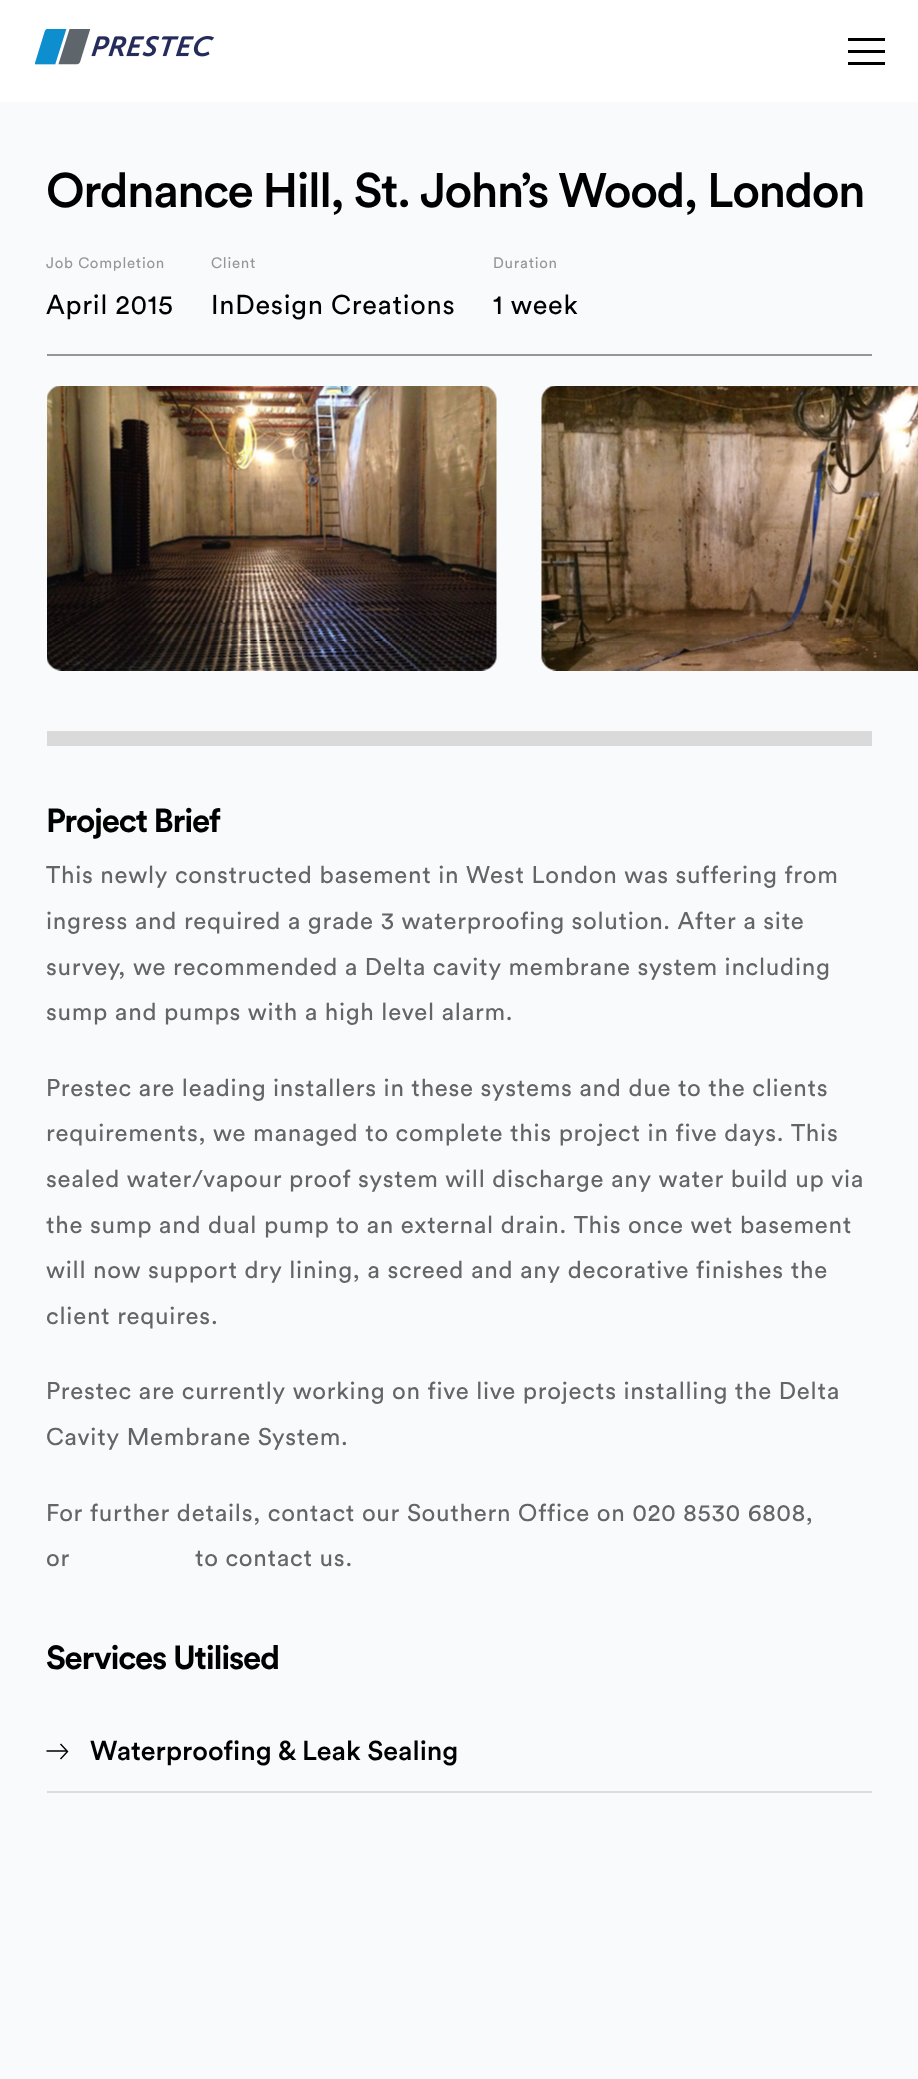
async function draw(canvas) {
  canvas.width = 918;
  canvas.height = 2079;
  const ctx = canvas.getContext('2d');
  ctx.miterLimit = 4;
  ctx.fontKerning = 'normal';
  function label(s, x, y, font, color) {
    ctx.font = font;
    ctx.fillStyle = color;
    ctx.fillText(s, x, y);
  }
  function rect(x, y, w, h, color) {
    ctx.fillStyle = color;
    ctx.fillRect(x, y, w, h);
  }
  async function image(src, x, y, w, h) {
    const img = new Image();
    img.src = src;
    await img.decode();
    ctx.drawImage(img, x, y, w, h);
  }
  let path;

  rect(0, 0, 918, 2079, '#f8fafc');
  rect(0, 0, 918, 102, '#fff');
  await image('assets/img1.png', 35, 29, 180, 36);
  rect(848, 38, 37, 3, '#000');
  rect(848, 50, 37, 3, '#000');
  rect(848, 62, 37, 3, '#000');
  rect(47, 354, 825, 2, '#969696');
  ctx.letterSpacing = '-1.5px';
  label('Ordnance Hill, St. John’s Wood, London', 46, 207, '500 48px Circular', '#000');
  ctx.letterSpacing = '0.75px';
  label('Job Completion', 46, 268, '15px Circular', '#969696');
  label('April 2015', 46, 314, '27px Circular', '#000');
  label('Client', 211, 268, '15px Circular', '#969696');
  label('InDesign Creations', 211, 314, '27px Circular', '#000');
  label('Duration', 493, 268, '15px Circular', '#969696');
  label('1 week', 493, 314, '27px Circular', '#000');
  await image('assets/img2.png', 47, 386, 450, 285);
  await image('assets/img3.png', 541, 386, 377, 285);
  rect(47, 731, 825, 15, '#dadada');
  ctx.letterSpacing = '-1.25px';
  label('Project Brief', 46, 832, 'bold 33px Circular', '#000');
  ctx.letterSpacing = '0.75px';
  label('This newly constructed basement in West London was suffering from', 46, 883, '24px Circular', '#656565');
  label('ingress and required a grade 3 waterproofing solution. After a site', 46, 929, '24px Circular', '#656565');
  label('survey, we recommended a Delta cavity membrane system including', 46, 975, '24px Circular', '#656565');
  label('sump and pumps with a high level alarm.', 46, 1020, '24px Circular', '#656565');
  label('Prestec are leading installers in these systems and due to the clients', 46, 1096, '24px Circular', '#656565');
  label('requirements, we managed to complete this project in five days. This', 46, 1141, '24px Circular', '#656565');
  label('sealed water/vapour proof system will discharge any water build up via', 46, 1187, '24px Circular', '#656565');
  label('the sump and dual pump to an external drain. This once wet basement', 46, 1233, '24px Circular', '#656565');
  label('will now support dry lining, a screed and any decorative finishes the', 46, 1278, '24px Circular', '#656565');
  label('client requires.', 46, 1324, '24px Circular', '#656565');
  label('Prestec are currently working on five live projects installing the Delta', 46, 1399, '24px Circular', '#656565');
  label('Cavity Membrane System.', 46, 1445, '24px Circular', '#656565');
  label('For further details, contact our Southern Office on 020 8530 6808,', 46, 1521, '24px Circular', '#656565');
  label('or', 46, 1566, '24px Circular', '#656565');
  label('to contact us.', 195, 1566, '24px Circular', '#656565');
  ctx.letterSpacing = '-1.25px';
  label('Services Utilised', 46, 1669, 'bold 33px Circular', '#000');
  rect(47, 1791, 825, 2, '#dbdcdd');
  path = new Path2D('M60.5 1759L67.5 1751.5L60.5 1744M67.5 1751H46.5');
  ctx.strokeStyle = '#000';
  ctx.lineWidth = 1.4;
  ctx.stroke(path);
  ctx.letterSpacing = '0px';
  label('Waterproofing & Leak Sealing', 90, 1760, '500 27px Circular', '#000');
}

draw(document.querySelector('canvas'));
